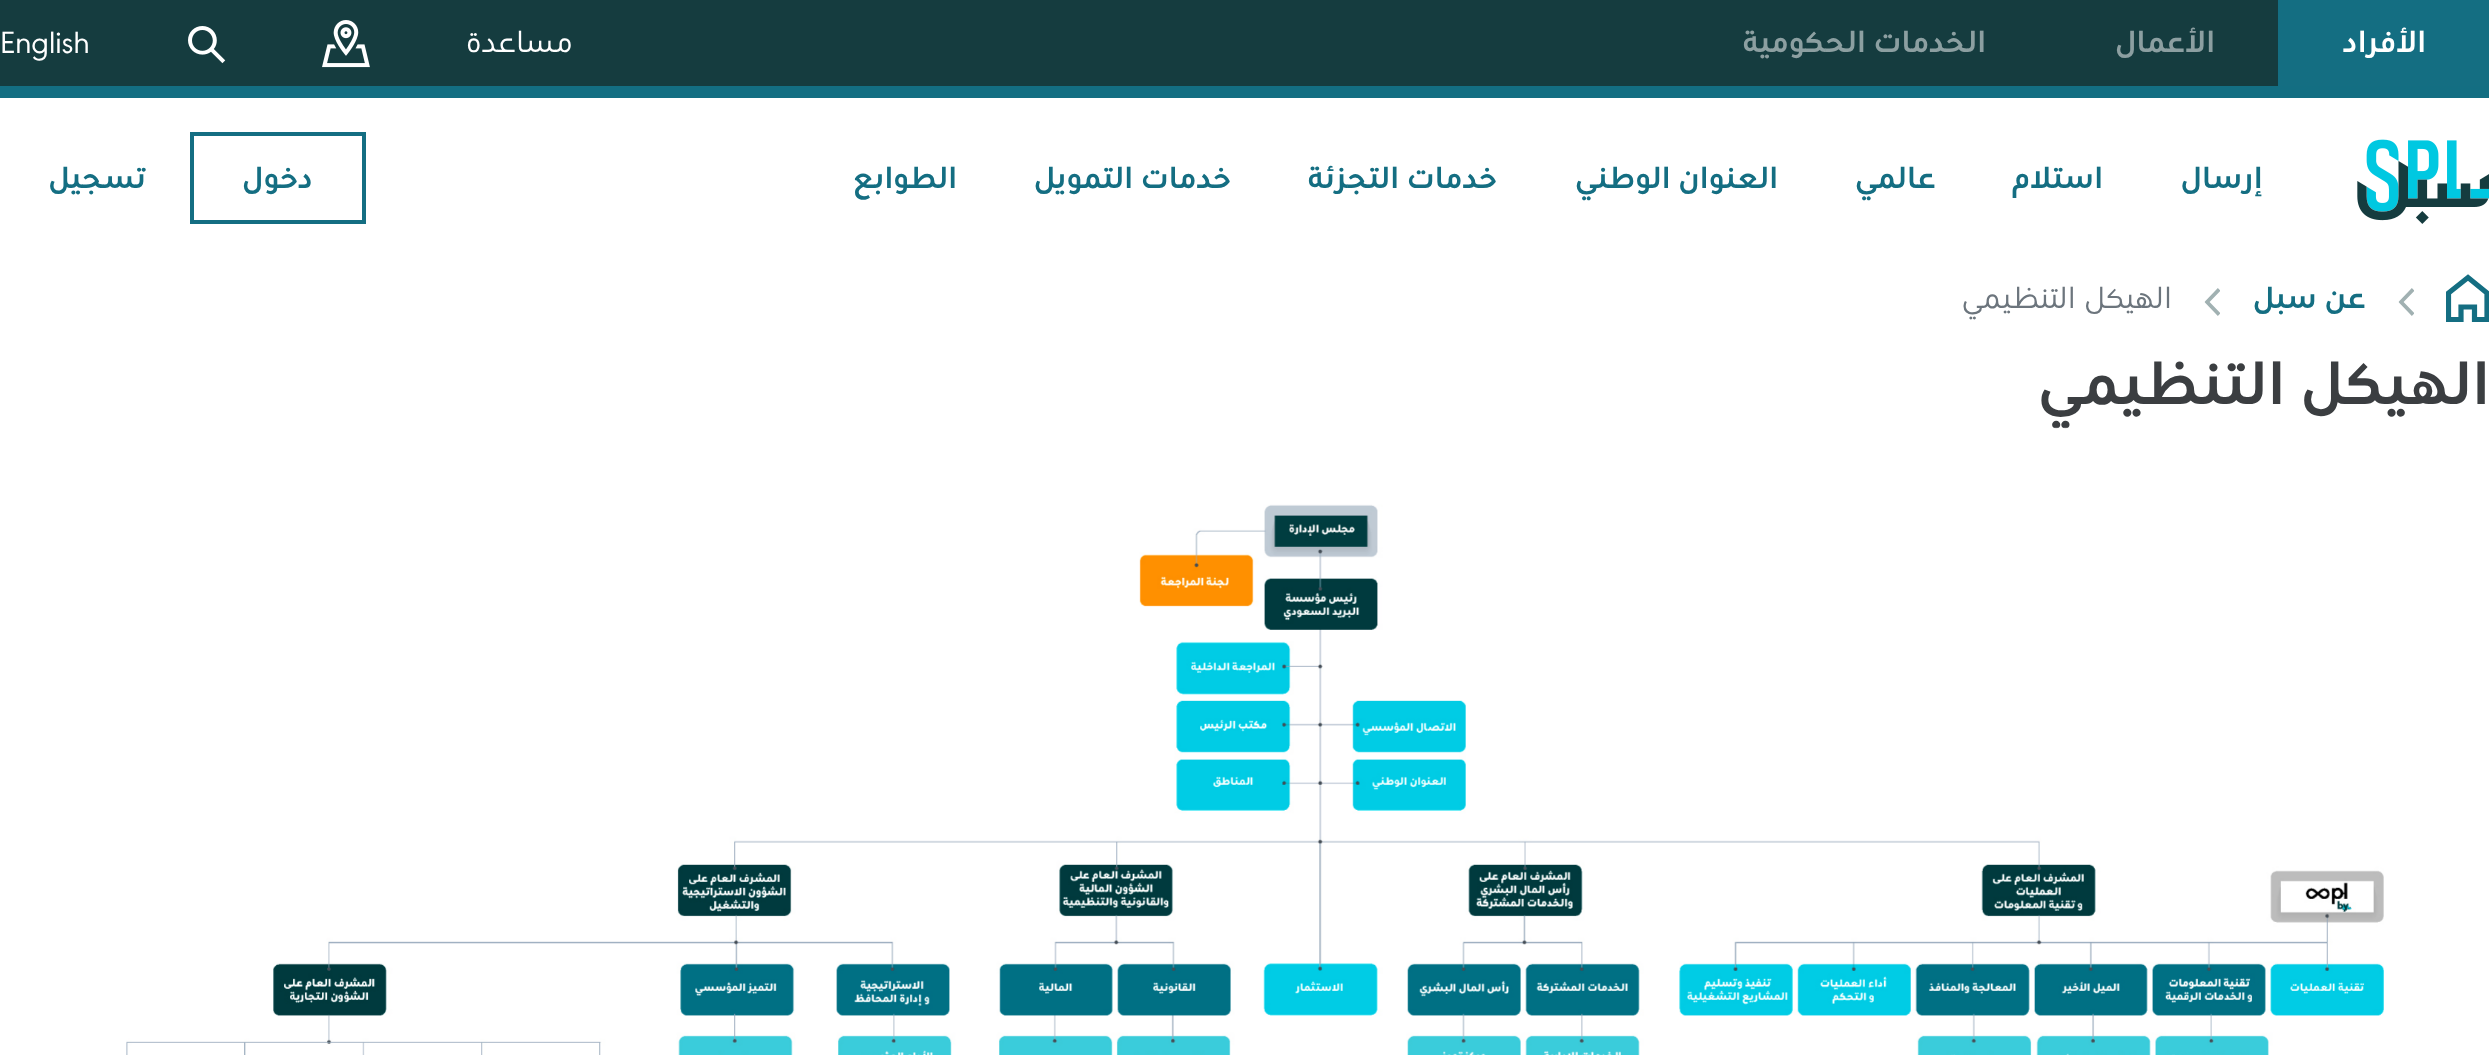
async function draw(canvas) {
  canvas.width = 2489;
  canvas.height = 1055;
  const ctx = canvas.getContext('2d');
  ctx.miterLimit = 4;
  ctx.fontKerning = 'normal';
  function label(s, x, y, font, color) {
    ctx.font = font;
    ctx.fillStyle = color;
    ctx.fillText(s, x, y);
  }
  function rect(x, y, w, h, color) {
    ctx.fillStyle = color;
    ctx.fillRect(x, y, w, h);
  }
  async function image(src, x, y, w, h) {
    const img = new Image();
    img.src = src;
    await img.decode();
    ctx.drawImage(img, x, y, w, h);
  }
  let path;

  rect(0, 0, 2489, 1055, '#fff');
  rect(0, 0, 2278, 86, '#153c3f');
  rect(0, 86, 2489, 12, '#136e82');
  rect(2278, 0, 211, 86, '#146e82');
  ctx.direction = 'rtl';
  label('الأفراد', 2426, 52, 'bold 32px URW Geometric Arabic', '#fff');
  label('الأعمال', 2215, 52, 'bold 32px URW Geometric Arabic', '#8c9fa1');
  label('الخدمات الحكومية', 1986, 52, 'bold 32px URW Geometric Arabic', '#8c9fa1');
  label('مساعدة', 573, 52, '32px URW Geometric Arabic', '#fff');
  await image('assets/img1.png', 322, 20, 48, 48);
  await image('assets/img2.png', 188, 26, 38, 38);
  ctx.direction = 'ltr';
  label('English', 0, 53, '32px URW Geometric Arabic', '#fff');
  await image('assets/img3.png', 2357, 139, 132, 85);
  ctx.direction = 'rtl';
  label('إرسال', 2263, 188, 'bold 32px URW Geometric Arabic', '#146e82');
  label('استلام', 2103, 188, 'bold 32px URW Geometric Arabic', '#146e82');
  label('عالمي', 1936, 188, 'bold 32px URW Geometric Arabic', '#146e82');
  label('العنوان الوطني', 1778, 188, 'bold 32px URW Geometric Arabic', '#146e82');
  label('خدمات التجزئة', 1497, 188, 'bold 32px URW Geometric Arabic', '#146e82');
  label('خدمات التمويل', 1231, 188, 'bold 32px URW Geometric Arabic', '#146e82');
  label('الطوابع', 957, 188, 'bold 32px URW Geometric Arabic', '#146e82');
  ctx.strokeStyle = '#146e82';
  ctx.lineWidth = 4;
  ctx.strokeRect(192, 134, 172, 88);
  label('دخول', 313, 188, 'bold 32px URW Geometric Arabic', '#146e82');
  label('تسجيل', 146, 188, 'bold 32px URW Geometric Arabic', '#146e82');
  ctx.save();
  ctx.beginPath();
  ctx.rect(2446, 274, 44, 48);
  ctx.clip();
  path = new Path2D('M2461 319.5V307H2474.5V319.5H2487V293L2468 277.5L2448.5 293V319.5Z');
  ctx.lineWidth = 5.2;
  ctx.stroke(path);
  ctx.restore();
  await image('assets/img4.png', 2398, 288, 16, 28);
  label('عن سبل', 2366, 308, 'bold 32px URW Geometric Arabic', '#146e82');
  await image('assets/img4.png', 2204, 288, 16, 28);
  label('الهيكل التنظيمي', 2172, 308, '32px URW Geometric Arabic', '#6c757d');
  label('الهيكل التنظيمي', 2490, 404, 'bold 64px URW Geometric Arabic', '#3b3e41');
  await image('assets/img5.png', 126, 427, 2258, 628);
}

draw(document.querySelector('canvas'));
